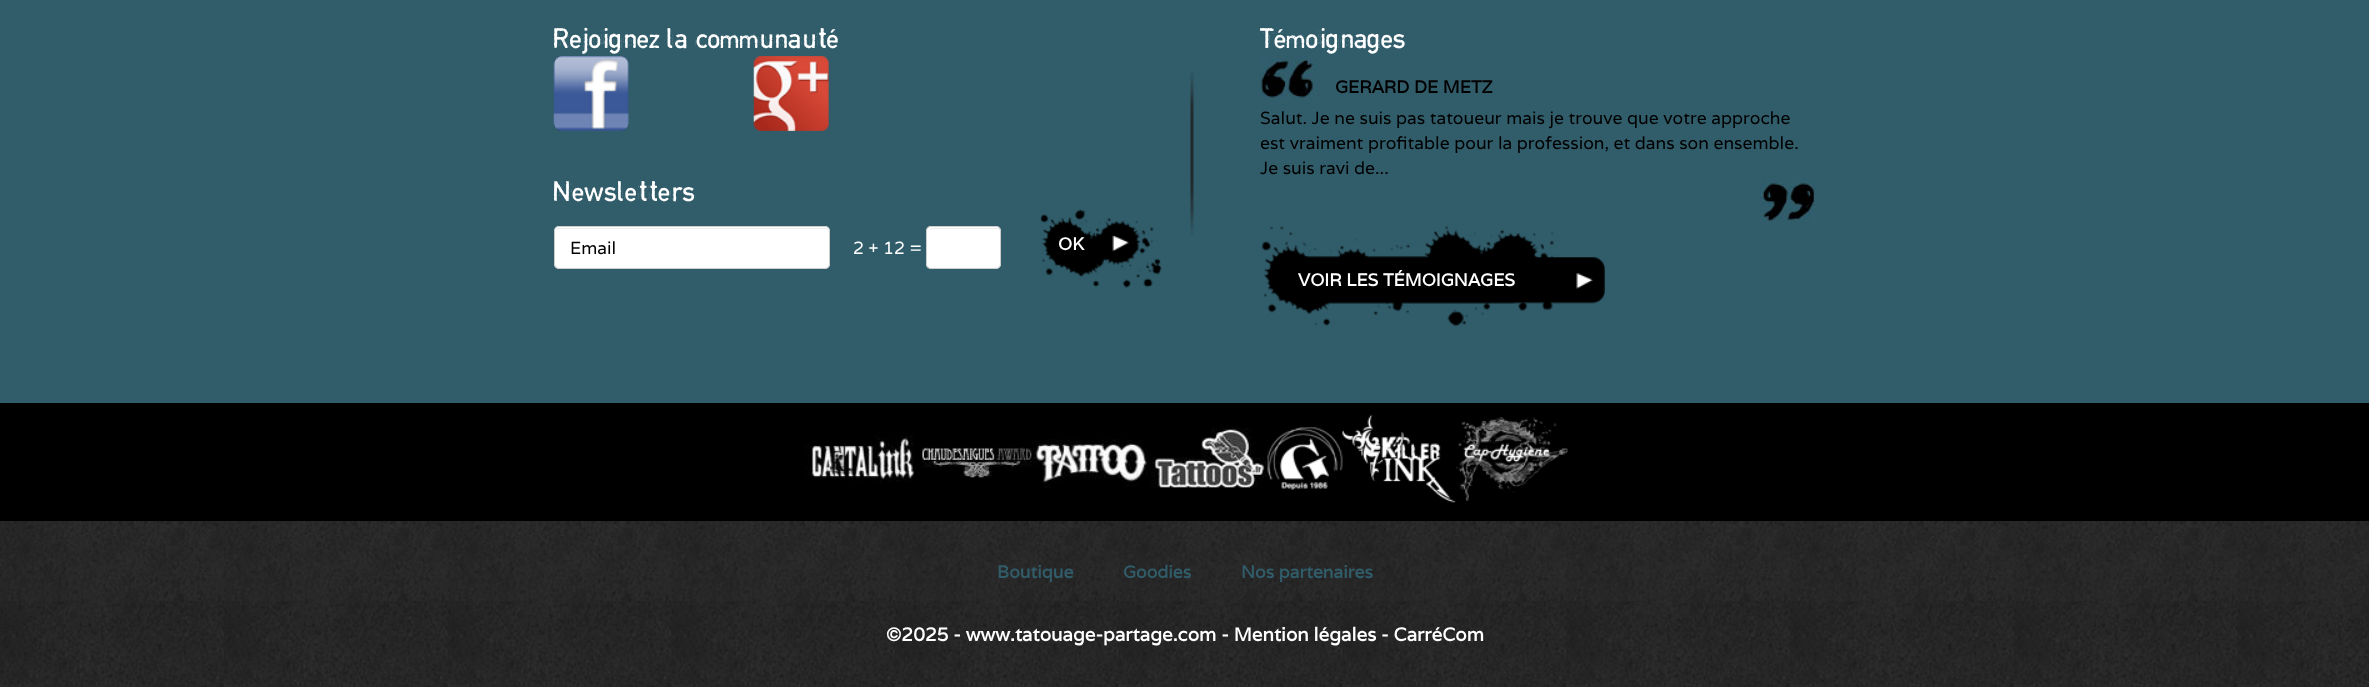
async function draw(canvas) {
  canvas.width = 2369;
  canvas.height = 687;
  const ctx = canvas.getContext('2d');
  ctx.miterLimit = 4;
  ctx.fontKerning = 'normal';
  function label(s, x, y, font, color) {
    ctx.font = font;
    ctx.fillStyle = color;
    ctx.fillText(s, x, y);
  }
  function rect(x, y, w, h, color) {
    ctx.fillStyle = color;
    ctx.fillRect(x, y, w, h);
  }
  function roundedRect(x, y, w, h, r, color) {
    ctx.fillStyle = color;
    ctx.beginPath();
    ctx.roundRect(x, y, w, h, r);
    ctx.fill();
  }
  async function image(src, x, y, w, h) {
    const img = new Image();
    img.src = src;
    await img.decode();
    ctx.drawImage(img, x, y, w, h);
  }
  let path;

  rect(0, 0, 2369, 687, '#fff');
  await image('assets/img1.png', 0, 521, 2369, 166);
  rect(0, 0, 2369, 403, '#315d6b');
  label('Rejoignez la communauté', 554, 44, '20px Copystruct', '#fff');
  await image('assets/img2.png', 553, 56, 76, 75);
  await image('assets/img3.png', 753, 56, 76, 75);
  label('Newsletters', 554, 197, '20px Copystruct', '#fff');
  roundedRect(554, 226, 276, 43, 5, '#fff');
  ctx.fillStyle = '#ececec';
  path = new Path2D('M559 229H826L829 231V232C829 230 827 228 825 228H559C557 228 555 230 555 232C555 230 557 229 559 229Z');
  ctx.fill(path);
  ctx.beginPath();
  ctx.roundRect(554.5, 226.5, 275, 42, 4.5);
  ctx.strokeStyle = '#ccc';
  ctx.stroke();
  label('Email', 570, 254, '17.5px Varela', '#000');
  label('2 + 12 =', 853, 254, '17.5px Varela', '#fff');
  roundedRect(926, 226, 75, 43, 5, '#fff');
  ctx.fillStyle = '#ececec';
  path = new Path2D('M931 229H996C998 229 1000 230 1000 232C1000 230 998 228 996 228H932C931 228 929 229 929 230Z');
  ctx.fill(path);
  ctx.beginPath();
  ctx.roundRect(926.5, 226.5, 74, 42, 4.5);
  ctx.stroke();
  await image('assets/img4.png', 1040, 209, 122, 79);
  label('OK', 1058, 250, 'bold 17.5px Varela', '#fff');
  await image('assets/img5.png', 1190, 71, 4, 165);
  label('Témoignages', 1260, 44, '20px Copystruct', '#fff');
  await image('assets/img6.png', 1260, 56, 56, 43);
  label('GERARD DE METZ', 1335, 93, 'bold 17.5px Varela', '#000');
  await image('assets/img7.png', 1760, 181, 56, 40);
  label('Salut. Je ne suis pas tatoueur mais je trouve que votre approche', 1260, 124, '17.5px Varela', '#000');
  label('est vraiment profitable pour la profession, et dans son ensemble.', 1260, 149, '17.5px Varela', '#000');
  label('Je suis ravi de...', 1260, 174, '17.5px Varela', '#000');
  await image('assets/img8.png', 1260, 226, 345, 101);
  label('VOIR LES TÉMOIGNAGES', 1298, 286, 'bold 17.5px Varela', '#fff');
  rect(0, 403, 2369, 118, '#000');
  await image('assets/img9.png', 804, 436, 110, 46);
  await image('assets/img10.png', 922, 447, 111, 31);
  await image('assets/img11.png', 1032, 439, 119, 49);
  await image('assets/img12.png', 1151, 427, 116, 61);
  await image('assets/img13.png', 1267, 427, 76, 63);
  await image('assets/img14.png', 1342, 414, 114, 89);
  await image('assets/img15.png', 1456, 417, 112, 84);
  label('Boutique', 997, 578, 'bold 17.5px Varela', '#315d6b');
  label('Goodies', 1123, 578, 'bold 17.5px Varela', '#315d6b');
  label('Nos partenaires', 1241, 578, 'bold 17.5px Varela', '#315d6b');
  label('©2025 - www.tatouage-partage.com - Mention légales - CarréCom', 886, 641, 'bold 18.75px Varela', '#fff');
}

draw(document.querySelector('canvas'));
